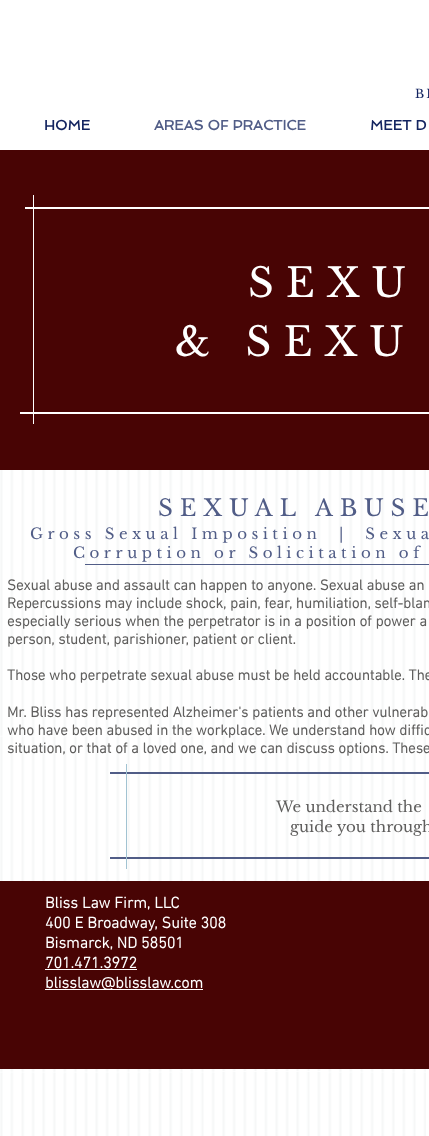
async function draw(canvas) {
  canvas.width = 429;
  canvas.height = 1136;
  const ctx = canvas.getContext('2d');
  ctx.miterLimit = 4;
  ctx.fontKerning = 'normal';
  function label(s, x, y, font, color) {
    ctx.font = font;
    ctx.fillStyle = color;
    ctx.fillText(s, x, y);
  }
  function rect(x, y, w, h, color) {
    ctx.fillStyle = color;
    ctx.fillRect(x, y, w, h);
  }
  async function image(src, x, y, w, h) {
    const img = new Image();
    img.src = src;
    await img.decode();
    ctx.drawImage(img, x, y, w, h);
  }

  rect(0, 0, 429, 1136, '#fff');
  ctx.letterSpacing = '2px';
  label('BL', 415, 98, '12px Libre Baskerville', '#132460');
  ctx.letterSpacing = '0px';
  label('HOME', 44, 130, 'bold 14px Spinnaker', '#132460');
  label('AREAS OF PRACTICE', 154, 130, 'bold 14px Spinnaker', '#515d87');
  label('MEET D', 370, 130, 'bold 14px Spinnaker', '#132460');
  rect(0, 150, 429, 320, '#480404');
  rect(25, 207, 404, 2, '#fff');
  rect(20, 412, 409, 2, '#fff');
  rect(33, 195, 1, 229, '#fff');
  ctx.letterSpacing = '12px';
  label('SEXU', 248, 297, '40px Libre Baskerville', '#fff');
  label('& SEXU', 175, 356, '40px Libre Baskerville', '#fff');
  await image('assets/img1.png', 0, 470, 426, 666);
  ctx.letterSpacing = '6.9px';
  label('SEXUAL ABUSE', 158, 516, '23px Libre Baskerville', '#515d87');
  ctx.letterSpacing = '4.5px';
  label('Gross Sexual Imposition  |  Sexua', 30, 539, '15px Libre Baskerville', '#515d87');
  label('Corruption or Solicitation of', 73, 558, '15px Libre Baskerville', '#515d87');
  rect(85, 564, 344, 1, '#515d87');
  ctx.letterSpacing = '0px';
  label('Sexual abuse and assault can happen to anyone. Sexual abuse an', 7, 590, 'bold 15px "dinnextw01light"', '#5f5e5d');
  label('Repercussions may include shock, pain, fear, humiliation, self-blam', 7, 608, 'bold 15px "dinnextw01light"', '#5f5e5d');
  label('especially serious when the perpetrator is in a position of power a', 7, 626, 'bold 15px "dinnextw01light"', '#5f5e5d');
  label('person, student, parishioner, patient or client.', 7, 644, 'bold 15px "dinnextw01light"', '#5f5e5d');
  label('Those who perpetrate sexual abuse must be held accountable. The', 7, 680, 'bold 15px "dinnextw01light"', '#5f5e5d');
  label('Mr. Bliss has represented Alzheimer\'s patients and other vulnerab', 7, 717, 'bold 15px "dinnextw01light"', '#5f5e5d');
  label('who have been abused in the workplace. We understand how diffic', 7, 735, 'bold 15px "dinnextw01light"', '#5f5e5d');
  label('situation, or that of a loved one, and we can discuss options. These', 7, 753, 'bold 15px "dinnextw01light"', '#5f5e5d');
  rect(110, 772, 319, 2, '#515d87');
  rect(110, 857, 319, 2, '#515d87');
  rect(126, 764, 1, 105, '#a1c3d2');
  label('We understand the', 276, 812, '15px Libre Baskerville', '#5f5e5d');
  label('guide you through', 290, 832, '15px Libre Baskerville', '#5f5e5d');
  rect(0, 881, 429, 188, '#480404');
  label('Bliss Law Firm, LLC', 45, 908, 'bold 16px "dinnextw01light"', '#fff');
  label('400 E Broadway, Suite 308', 45, 928, 'bold 16px "dinnextw01light"', '#fff');
  label('Bismarck, ND 58501', 45, 948, 'bold 16px "dinnextw01light"', '#fff');
  label('701.471.3972', 45, 968, 'bold 16px "dinnextw01light"', '#fff');
  rect(45, 969, 92, 1, '#fff');
  rect(45, 989, 158, 1, '#fff');
  label('blisslaw@blisslaw.com', 45, 988, 'bold 16px "dinnextw01light"', '#fff');
}

draw(document.querySelector('canvas'));
